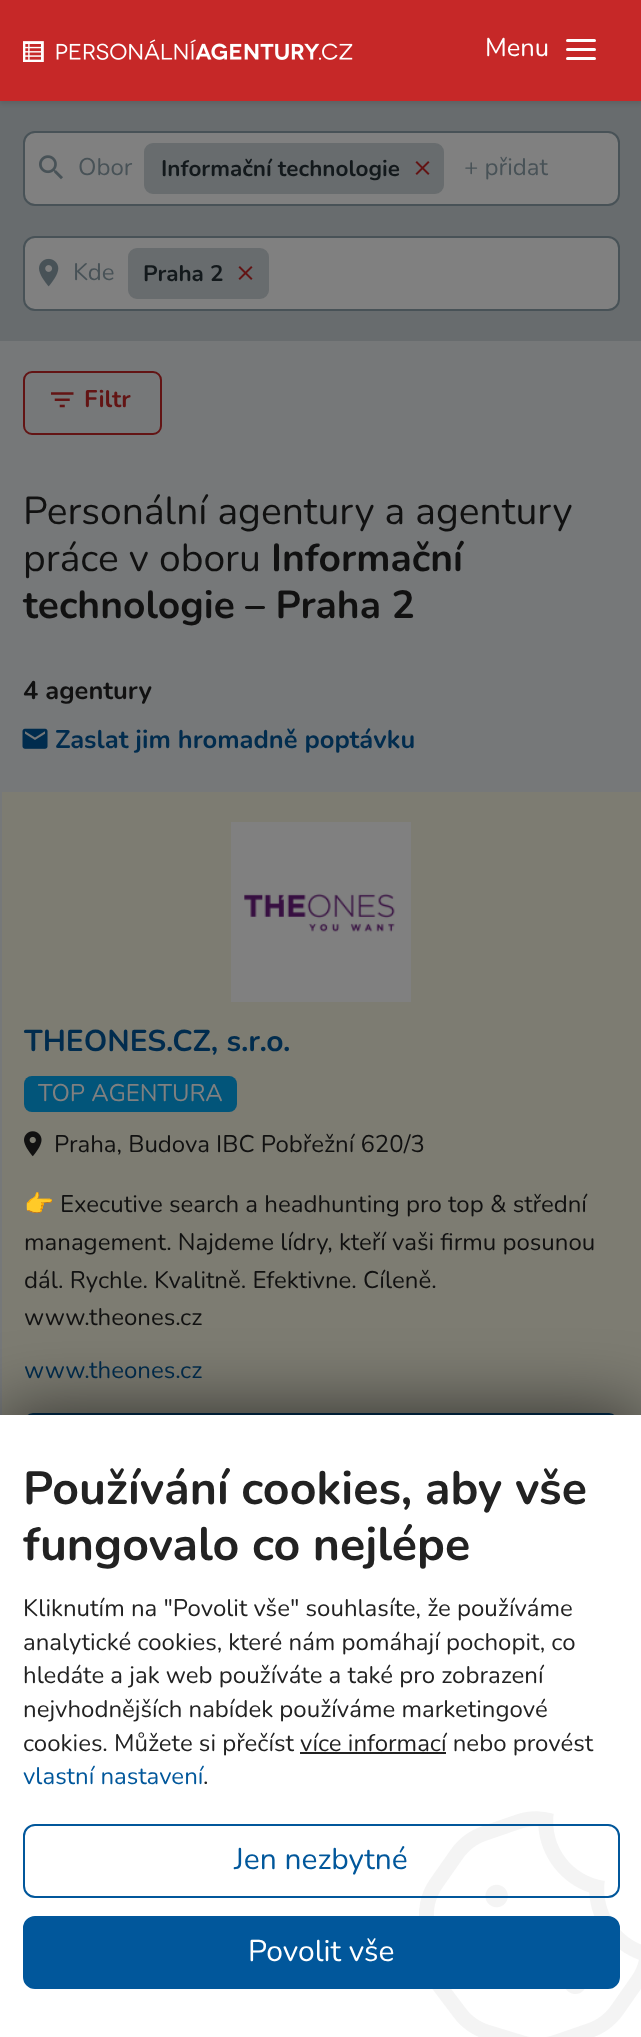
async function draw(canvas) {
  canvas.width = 641;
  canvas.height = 2037;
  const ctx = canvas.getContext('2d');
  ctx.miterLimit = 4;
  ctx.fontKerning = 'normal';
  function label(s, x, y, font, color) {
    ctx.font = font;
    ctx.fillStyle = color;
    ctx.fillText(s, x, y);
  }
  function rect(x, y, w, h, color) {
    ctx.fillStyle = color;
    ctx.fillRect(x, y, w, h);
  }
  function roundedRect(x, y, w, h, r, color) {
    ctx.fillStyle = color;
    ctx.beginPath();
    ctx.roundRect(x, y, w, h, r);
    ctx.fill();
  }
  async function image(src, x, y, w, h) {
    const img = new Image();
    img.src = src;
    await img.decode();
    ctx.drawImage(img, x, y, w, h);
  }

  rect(0, 0, 641, 2037, '#767879');
  rect(0, 101, 641, 240, '#686c6e');
  ctx.fillStyle = '#00000017';
  ctx.filter = 'blur(2px)';
  ctx.beginPath();
  ctx.rect(0, 3, 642, 101);
  ctx.fill();
  ctx.filter = 'none';
  rect(0, 0, 641, 101, '#c62828');
  await image('assets/img1.png', 23, 39, 330, 23);
  label('Menu', 485, 56, '25.5px Nunito', '#fff');
  roundedRect(566, 39, 30, 3, 1.5, '#fff');
  roundedRect(566, 48, 30, 3, 1.5, '#fff');
  roundedRect(566, 57, 30, 3, 1.5, '#fff');
  ctx.fillStyle = '#808080';
  ctx.beginPath();
  ctx.roundRect(24, 132, 595, 73, 11);
  ctx.fill();
  ctx.strokeStyle = '#485257';
  ctx.lineWidth = 2;
  ctx.stroke();
  await image('assets/img2.png', 39, 155, 24, 25);
  label('Obor', 78, 175, '24px Nunito', '#485257');
  ctx.fillStyle = '#686c6e';
  ctx.beginPath();
  ctx.roundRect(145, 144, 298, 49, 8);
  ctx.fill();
  ctx.strokeStyle = '#686c6e';
  ctx.stroke();
  label('Informační technologie', 161, 176, 'bold 22.5px Nunito', '#13191c');
  await image('assets/img3.png', 415, 161, 15, 14);
  label('+ přidat', 464, 175, '24px Nunito', '#485257');
  ctx.fillStyle = '#808080';
  ctx.beginPath();
  ctx.roundRect(24, 237, 595, 73, 11);
  ctx.fill();
  ctx.strokeStyle = '#485257';
  ctx.stroke();
  await image('assets/img4.png', 39, 258, 20, 29);
  label('Kde', 73, 280, '24px Nunito', '#485257');
  ctx.fillStyle = '#686c6e';
  ctx.beginPath();
  ctx.roundRect(129, 249, 139, 49, 8);
  ctx.fill();
  ctx.strokeStyle = '#686c6e';
  ctx.stroke();
  label('Praha 2', 143, 281, 'bold 22.5px Nunito', '#13191c');
  await image('assets/img3.png', 238, 266, 15, 14);
  ctx.beginPath();
  ctx.roundRect(24, 372, 137, 62, 8);
  ctx.strokeStyle = '#631414';
  ctx.stroke();
  await image('assets/img5.png', 51, 392, 23, 16);
  label('Filtr', 84, 407, 'bold 24px Nunito', '#631414');
  label('Personální agentury a agentury', 23, 524, '39px Nunito', '#111');
  label('práce v oboru', 23, 571, '39px Nunito', '#111');
  label('Informační', 271, 571, 'bold 39px Nunito', '#111');
  label('technologie – Praha 2', 23, 618, 'bold 39px Nunito', '#111');
  label('4 agentury', 23, 699, 'bold 25.5px Nunito', '#111');
  await image('assets/img6.png', 22, 728, 26, 21);
  label('Zaslat jim hromadně poptávku', 55, 748, 'bold 25.5px Nunito', '#012c4e');
  rect(2, 792, 639, 623, '#7d7c72');
  await image('assets/img7.png', 231, 822, 180, 180);
  label('THEONES.CZ, s.r.o.', 24, 1051, 'bold 30px Nunito', '#012c4e');
  roundedRect(24, 1076, 213, 36, 8, '#02557a');
  label('TOP AGENTURA', 38, 1101, '24px Nunito', '#808080');
  await image('assets/img8.png', 24, 1131, 18, 26);
  label('Praha, Budova IBC Pobřežní 620/3', 54, 1152, '24px Nunito', '#111');
  label('👉', 24, 1212, '24px Noto Color Emoji', '#111');
  label('Executive search a headhunting pro top & střední', 60, 1212, '24px Nunito', '#111');
  label('management. Najdeme lídry, kteří vaši firmu posunou', 24, 1250, '24px Nunito', '#111');
  label('dál. Rychle. Kvalitně. Efektivne. Cíleně.', 24, 1288, '24px Nunito', '#111');
  label('www.theones.cz', 24, 1325, '24px Nunito', '#111');
  label('www.theones.cz', 24, 1378, '24px Nunito', '#012c4e');
  ctx.beginPath();
  ctx.roundRect(25, 1414, 592, 57, 8);
  ctx.strokeStyle = '#012c4e';
  ctx.stroke();
  ctx.fillStyle = '#000000a6';
  ctx.filter = 'blur(37.5px)';
  ctx.beginPath();
  ctx.rect(0, 1415, 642, 622);
  ctx.fill();
  ctx.filter = 'none';
  rect(0, 1415, 641, 622, '#fff');
  label('Používání cookies, aby vše', 23, 1504, 'bold 46.5px Nunito', '#222');
  label('fungovalo co nejlépe', 23, 1560, 'bold 46.5px Nunito', '#222');
  label('Kliknutím na "Povolit vše" souhlasíte, že používáme', 23, 1616, '24px Nunito', '#222');
  label('analytické cookies, které nám pomáhají pochopit, co', 23, 1650, '24px Nunito', '#222');
  label('hledáte a jak web používáte a také pro zobrazení', 23, 1683, '24px Nunito', '#222');
  label('nejvhodnějších nabídek používáme marketingové', 23, 1717, '24px Nunito', '#222');
  label('cookies. Můžete si přečíst více informací nebo provést', 23, 1751, '24px Nunito', '#222');
  rect(300, 1752, 146, 2, '#222');
  label('vlastní nastavení', 23, 1784, '24px Nunito', '#01579b');
  label('.', 203, 1784, '24px Nunito', '#222');
  await image('assets/img9.png', 419, 1811, 222, 226);
  ctx.beginPath();
  ctx.roundRect(24, 1825, 595, 72, 11);
  ctx.strokeStyle = '#01579b';
  ctx.stroke();
  label('Jen nezbytné', 234, 1869, '30px Nunito', '#01579b');
  ctx.beginPath();
  ctx.roundRect(24, 1917, 595, 71, 11);
  ctx.fill();
  ctx.stroke();
  label('Povolit vše', 248, 1961, '30px Nunito', '#fff');
}

draw(document.querySelector('canvas'));
